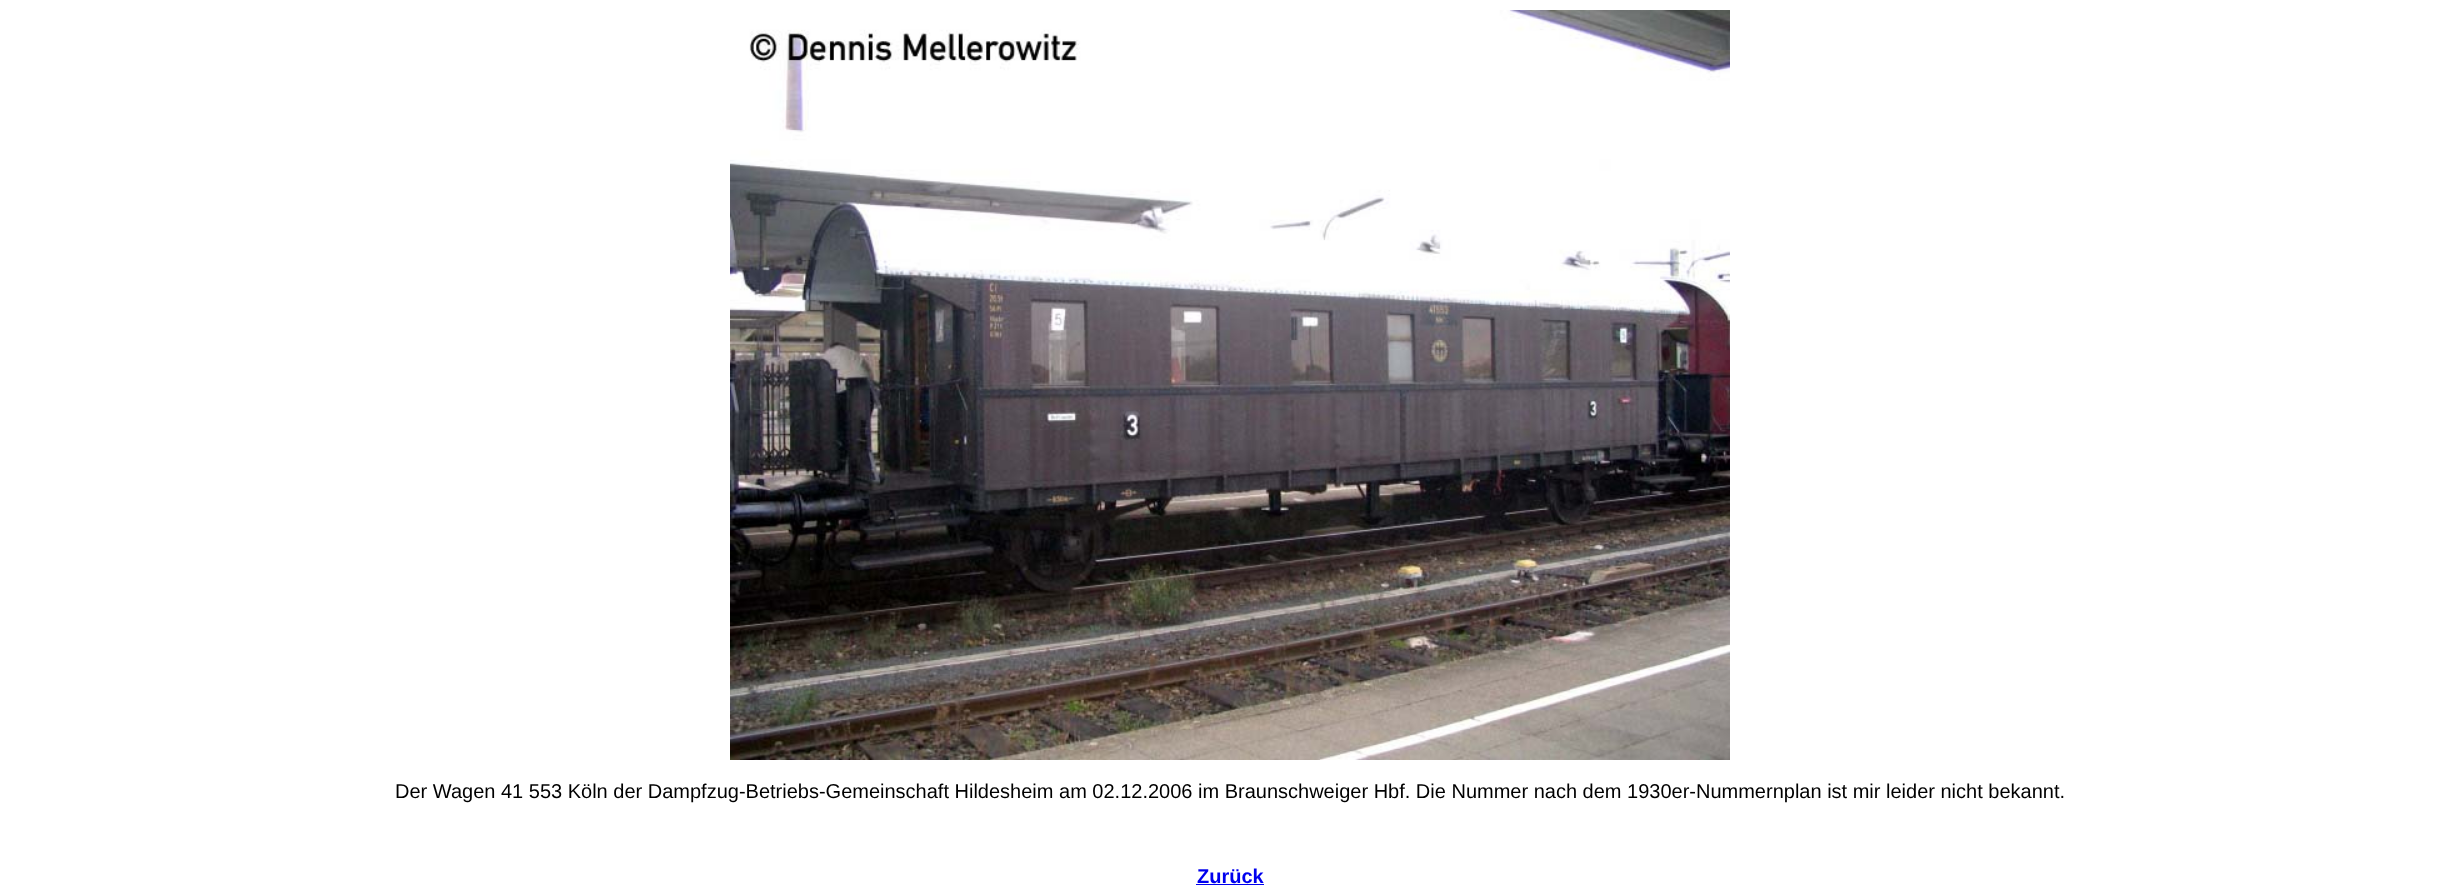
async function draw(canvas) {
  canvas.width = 2459;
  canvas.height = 890;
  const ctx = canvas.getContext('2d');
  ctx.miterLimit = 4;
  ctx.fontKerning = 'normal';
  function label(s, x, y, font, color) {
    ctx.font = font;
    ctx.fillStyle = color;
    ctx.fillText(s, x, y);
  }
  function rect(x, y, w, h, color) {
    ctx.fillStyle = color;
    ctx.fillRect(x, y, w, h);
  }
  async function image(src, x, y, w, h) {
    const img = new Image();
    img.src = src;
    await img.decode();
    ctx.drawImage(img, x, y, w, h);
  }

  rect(0, 0, 2459, 890, '#fff');
  await image('assets/img1.png', 730, 10, 1000, 750);
  label('Der Wagen 41 553 Köln der Dampfzug-Betriebs-Gemeinschaft Hildesheim am 02.12.2006 im Braunschweiger Hbf. Die Nummer nach dem 1930er-Nummernplan ist mir leider nicht bekannt.', 395, 798, '20px Liberation Sans', '#000');
  label('Zurück', 1197, 883, 'bold 20px Liberation Sans', '#00e');
  rect(1196, 884, 68, 1, '#00e');
}

draw(document.querySelector('canvas'));
